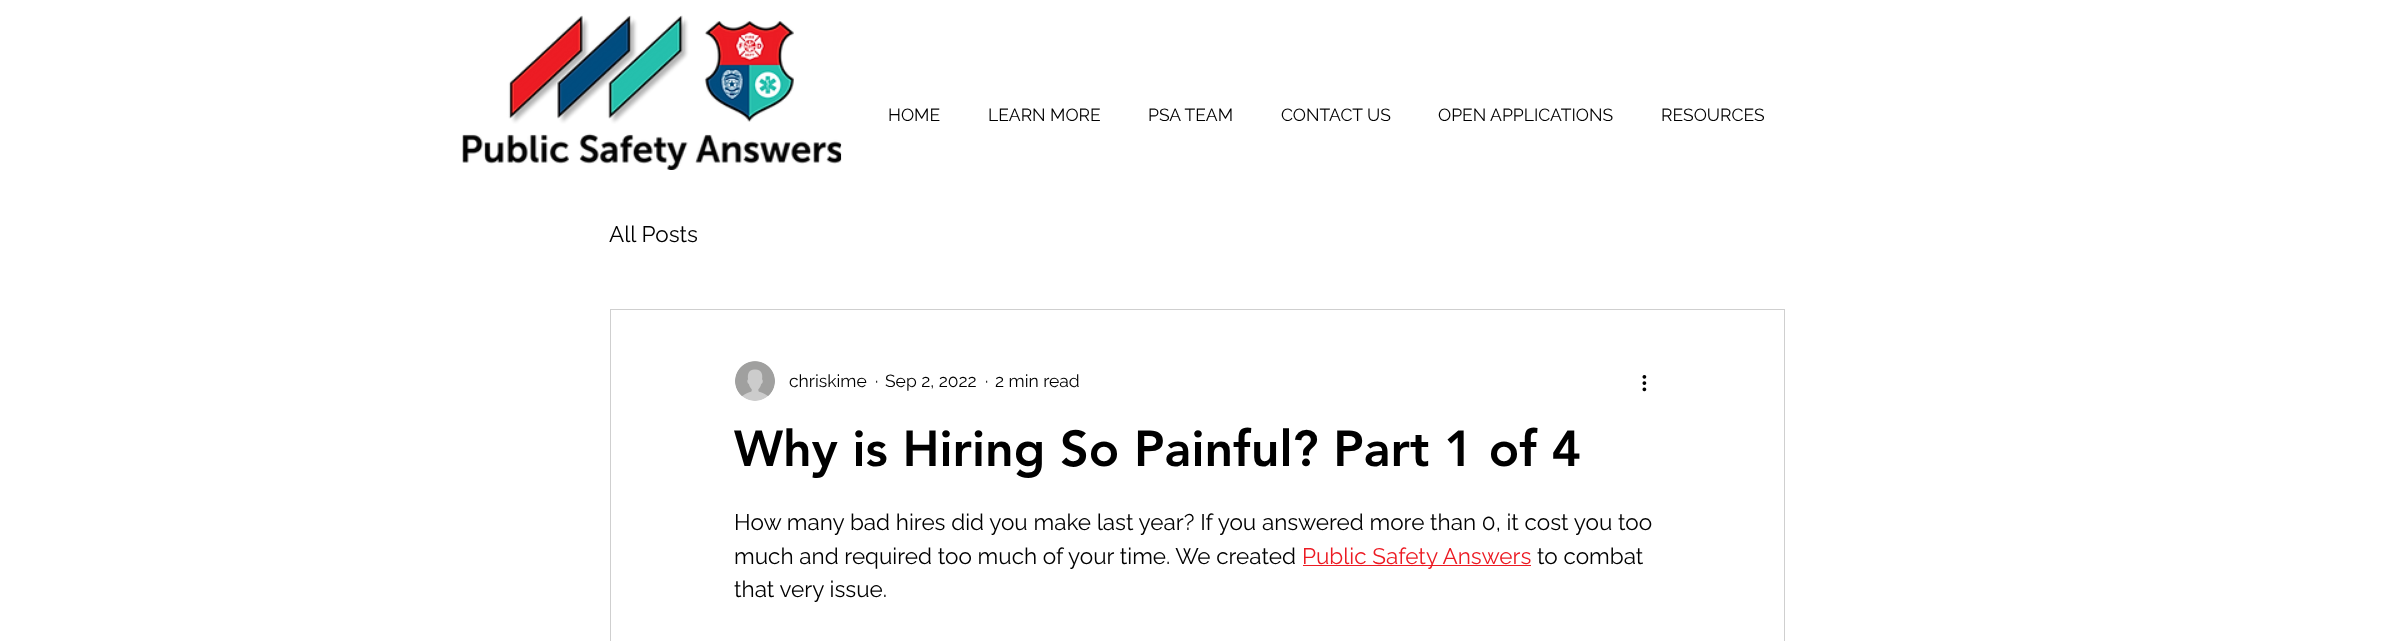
async function draw(canvas) {
  canvas.width = 2393;
  canvas.height = 641;
  const ctx = canvas.getContext('2d');
  ctx.miterLimit = 4;
  ctx.fontKerning = 'normal';
  function label(s, x, y, font, color) {
    ctx.font = font;
    ctx.fillStyle = color;
    ctx.fillText(s, x, y);
  }
  function rect(x, y, w, h, color) {
    ctx.fillStyle = color;
    ctx.fillRect(x, y, w, h);
  }
  async function image(src, x, y, w, h) {
    const img = new Image();
    img.src = src;
    await img.decode();
    ctx.drawImage(img, x, y, w, h);
  }

  rect(0, 0, 2393, 641, '#fff');
  await image('assets/img1.png', 462, 15, 380, 155);
  label('HOME', 888, 121, '17.5px Raleway', '#000');
  label('LEARN MORE', 988, 121, '17.5px Raleway', '#000');
  label('PSA TEAM', 1148, 121, '17.5px Raleway', '#000');
  label('CONTACT US', 1281, 121, '17.5px Raleway', '#000');
  label('OPEN APPLICATIONS', 1438, 121, '17.5px Raleway', '#000');
  label('RESOURCES', 1661, 121, '17.5px Raleway', '#000');
  label('All Posts', 609, 242, '22.5px Raleway', '#000');
  ctx.strokeStyle = '#cfcfcf';
  ctx.strokeRect(610.5, 309.5, 1174, 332);
  await image('assets/img2.png', 735, 361, 40, 40);
  label('chriskime', 789, 387, '17.5px Raleway', '#000');
  label('·', 875, 387, '17.5px Raleway', '#000');
  label('Sep 2, 2022', 885, 387, '17.5px Raleway', '#000');
  label('·', 985, 387, '17.5px Raleway', '#000');
  label('2 min read', 995, 387, '17.5px Raleway', '#000');
  await image('assets/img3.png', 1642, 375, 5, 17);
  label('Why is Hiring So Painful? Part 1 of 4', 734, 466, '900 50px "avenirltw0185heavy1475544"', '#000');
  label('How many bad hires did you make last year? If you answered more than 0, it cost you too', 734, 530, '22.5px Raleway', '#000');
  label('much and required too much of your time. We created', 734, 564, '22.5px Raleway', '#000');
  rect(1303, 565, 228, 1, '#ec1b23');
  label('Public Safety Answers', 1302, 564, '22.5px Raleway', '#ec1b23');
  label('to combat', 1537, 564, '22.5px Raleway', '#000');
  label('that very issue.', 734, 597, '22.5px Raleway', '#000');
}

draw(document.querySelector('canvas'));
